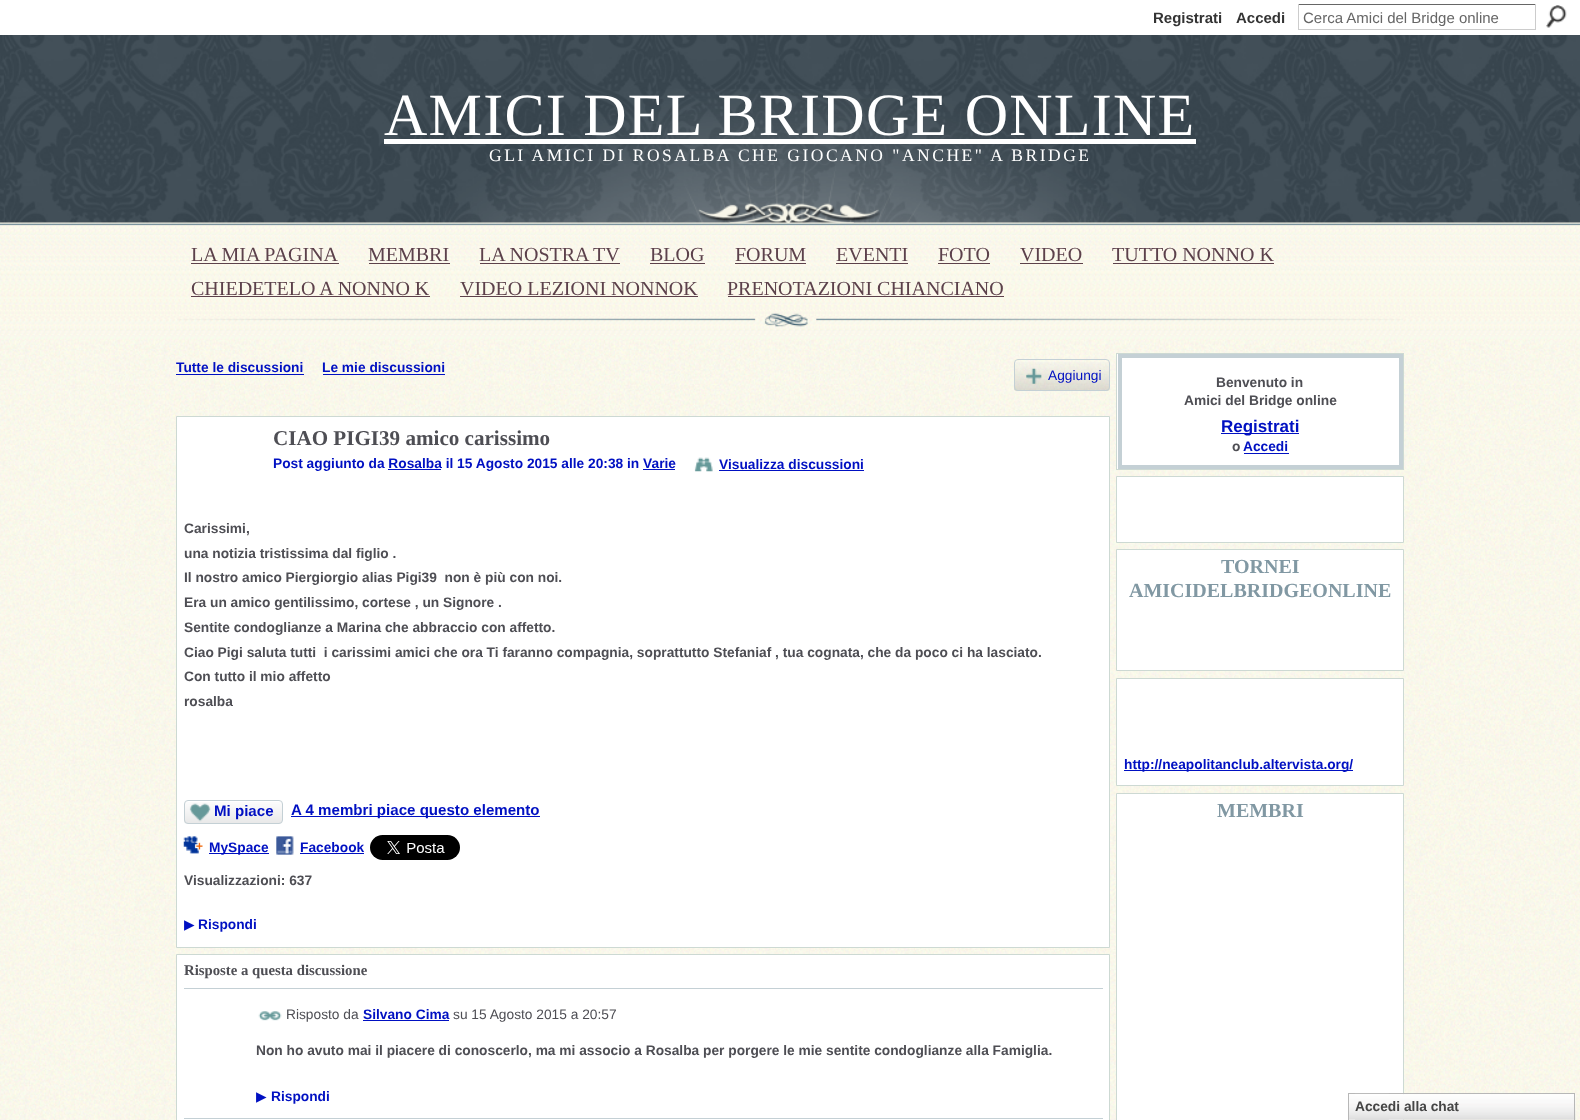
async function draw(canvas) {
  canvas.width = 1580;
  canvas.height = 1120;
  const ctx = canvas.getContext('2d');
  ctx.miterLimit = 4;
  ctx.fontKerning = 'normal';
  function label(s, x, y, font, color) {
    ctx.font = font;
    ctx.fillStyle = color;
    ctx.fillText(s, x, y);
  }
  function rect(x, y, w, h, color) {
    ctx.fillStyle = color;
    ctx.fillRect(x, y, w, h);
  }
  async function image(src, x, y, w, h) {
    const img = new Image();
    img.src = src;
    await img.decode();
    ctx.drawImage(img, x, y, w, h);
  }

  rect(0, 0, 1580, 1120, '#42525c');
  await image('assets/img1.png', 0, 35, 1580, 188);
  rect(0, 0, 1580, 35, '#fff');
  label('Registrati', 1153, 23, 'bold 15px Liberation Sans', '#333');
  label('Accedi', 1236, 23, 'bold 15px Liberation Sans', '#333');
  rect(1298, 4, 238, 1, '#666');
  rect(1535, 4, 1, 26, '#ccc');
  rect(1298, 29, 238, 1, '#ccc');
  rect(1298, 4, 1, 26, '#ccc');
  label('Cerca Amici del Bridge online', 1303, 23, '15px Liberation Sans', '#666');
  await image('assets/img2.png', 1546, 5, 21, 23);
  await image('assets/img3.png', 443, 89, 693, 134);
  await image('assets/img4.png', 698, 202, 182, 21);
  ctx.letterSpacing = '1.25px';
  label('AMICI DEL BRIDGE ONLINE', 384, 135, '60px Liberation Serif', '#fff');
  rect(384, 139, 812, 5, '#fff');
  ctx.letterSpacing = '2.5px';
  label('GLI AMICI DI ROSALBA CHE GIOCANO "ANCHE" A BRIDGE', 489, 161, '17.5px Liberation Serif', '#fff');
  await image('assets/img5.png', 0, 222, 1580, 118);
  await image('assets/img6.png', 177, 313, 1226, 14);
  ctx.letterSpacing = '0px';
  label('LA MIA PAGINA', 191, 261, '20px Liberation Serif', '#5c414b');
  rect(191, 263, 148, 1, '#5c414b');
  label('MEMBRI', 368, 261, '20px Liberation Serif', '#5c414b');
  rect(369, 263, 81, 1, '#5c414b');
  label('LA NOSTRA TV', 479, 261, '20px Liberation Serif', '#5c414b');
  rect(480, 263, 140, 1, '#5c414b');
  label('BLOG', 650, 261, '20px Liberation Serif', '#5c414b');
  rect(650, 263, 55, 1, '#5c414b');
  label('FORUM', 735, 261, '20px Liberation Serif', '#5c414b');
  rect(735, 263, 71, 1, '#5c414b');
  label('EVENTI', 836, 261, '20px Liberation Serif', '#5c414b');
  rect(836, 263, 72, 1, '#5c414b');
  label('FOTO', 938, 261, '20px Liberation Serif', '#5c414b');
  rect(938, 263, 52, 1, '#5c414b');
  label('VIDEO', 1020, 261, '20px Liberation Serif', '#5c414b');
  rect(1020, 263, 63, 1, '#5c414b');
  label('TUTTO NONNO K', 1112, 261, '20px Liberation Serif', '#5c414b');
  rect(1113, 263, 161, 1, '#5c414b');
  label('CHIEDETELO A NONNO K', 191, 295, '20px Liberation Serif', '#5c414b');
  rect(191, 296, 239, 1, '#5c414b');
  label('VIDEO LEZIONI NONNOK', 460, 295, '20px Liberation Serif', '#5c414b');
  rect(460, 296, 238, 1, '#5c414b');
  label('PRENOTAZIONI CHIANCIANO', 727, 295, '20px Liberation Serif', '#5c414b');
  rect(728, 296, 276, 1, '#5c414b');
  await image('assets/img7.png', 0, 340, 1580, 780);
  label('Tutte le discussioni', 176, 372, 'bold 13.75px Liberation Sans', '#0010c2');
  rect(176, 374, 128, 1, '#0010c2');
  label('Le mie discussioni', 322, 372, 'bold 13.75px Liberation Sans', '#0010c2');
  rect(323, 374, 122, 1, '#0010c2');
  await image('assets/img8.png', 1014, 362, 96, 29);
  ctx.beginPath();
  ctx.roundRect(1014.5, 359.5, 95, 31, 3.5);
  ctx.strokeStyle = '#c4d0d5';
  ctx.stroke();
  await image('assets/img9.png', 1026, 368, 16, 16);
  label('Aggiungi', 1048, 380, '13.75px Liberation Sans', '#0010c2');
  ctx.fillStyle = '#fff';
  ctx.beginPath();
  ctx.rect(176.5, 416.5, 933, 531);
  ctx.fill();
  ctx.strokeStyle = '#cdd9d3';
  ctx.stroke();
  label('CIAO PIGI39 amico carissimo', 273, 445, 'bold 21.1px Liberation Serif', '#4e4e54');
  label('Post aggiunto da Rosalba il 15 Agosto 2015 alle 20:38 in Varie', 273, 468, 'bold 13.75px Liberation Sans', '#0010c2');
  rect(388, 469, 53, 1, '#0010c2');
  rect(643, 469, 32, 1, '#0010c2');
  await image('assets/img10.png', 694, 457, 19, 15);
  label('Visualizza discussioni', 719, 469, 'bold 13.75px Liberation Sans', '#0010c2');
  rect(719, 470, 145, 1, '#0010c2');
  label('Carissimi,', 184, 533, 'bold 13.75px Liberation Sans', '#4e4e54');
  label('una notizia tristissima dal figlio .', 184, 558, 'bold 13.75px Liberation Sans', '#4e4e54');
  label('Il nostro amico Piergiorgio alias Pigi39  non è più con noi.', 184, 582, 'bold 13.75px Liberation Sans', '#4e4e54');
  label('Era un amico gentilissimo, cortese , un Signore .', 184, 607, 'bold 13.75px Liberation Sans', '#4e4e54');
  label('Sentite condoglianze a Marina che abbraccio con affetto.', 184, 632, 'bold 13.75px Liberation Sans', '#4e4e54');
  label('Ciao Pigi saluta tutti  i carissimi amici che ora Ti faranno compagnia, soprattutto Stefaniaf , tua cognata, che da poco ci ha lasciato.', 184, 657, 'bold 13.75px Liberation Sans', '#4e4e54');
  label('Con tutto il mio affetto', 184, 681, 'bold 13.75px Liberation Sans', '#4e4e54');
  label('rosalba', 184, 706, 'bold 13.75px Liberation Sans', '#4e4e54');
  await image('assets/img11.png', 184, 802, 99, 22);
  ctx.beginPath();
  ctx.roundRect(184.5, 800.5, 98, 23, 3.5);
  ctx.strokeStyle = '#c4d0d5';
  ctx.stroke();
  await image('assets/img12.png', 189, 803, 22, 19);
  label('Mi piace', 214, 816, 'bold 15.1px Liberation Sans', '#0010c2');
  rect(291, 816, 249, 1, '#0010c2');
  label('A 4 membri piace questo elemento', 291, 815, 'bold 15.1px Liberation Sans', '#0010c2');
  await image('assets/img13.png', 183, 836, 20, 18);
  rect(209, 853, 60, 1, '#0010c2');
  label('MySpace', 209, 852, 'bold 13.75px Liberation Sans', '#0010c2');
  await image('assets/img14.png', 276, 836, 18, 19);
  label('Facebook', 300, 852, 'bold 13.75px Liberation Sans', '#0010c2');
  rect(300, 853, 64, 1, '#0010c2');
  await image('assets/img15.png', 370, 835, 90, 25);
  label('Visualizzazioni: 637', 184, 885, 'bold 13.75px Liberation Sans', '#4e4e54');
  label('▶', 184, 929, '13.75px DejaVu Sans', '#0010c2');
  label('Rispondi', 198, 929, 'bold 13.75px Liberation Sans', '#0010c2');
  ctx.fillStyle = '#fff';
  ctx.beginPath();
  ctx.rect(176.5, 954.5, 933, 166);
  ctx.fill();
  ctx.strokeStyle = '#cdd9d3';
  ctx.stroke();
  label('Risposte a questa discussione', 184, 975, 'bold 14.75px Liberation Serif', '#4e4e54');
  rect(184, 988, 919, 1, '#c4d0d5');
  await image('assets/img16.png', 258, 1011, 24, 10);
  label('Risposto da', 286, 1019, '13.75px Liberation Sans', '#4e4e54');
  label('Silvano Cima', 363, 1019, 'bold 13.75px Liberation Sans', '#0010c2');
  rect(363, 1020, 86, 1, '#0010c2');
  label('su 15 Agosto 2015 a 20:57', 453, 1019, '13.75px Liberation Sans', '#4e4e54');
  label('Non ho avuto mai il piacere di conoscerlo, ma mi associo a Rosalba per porgere le mie sentite condoglianze alla Famiglia.', 256, 1055, 'bold 13.75px Liberation Sans', '#4e4e54');
  label('▶', 256, 1101, '13.75px DejaVu Sans', '#0010c2');
  label('Rispondi', 271, 1101, 'bold 13.75px Liberation Sans', '#0010c2');
  rect(184, 1118, 919, 1, '#c4d0d5');
  rect(1117, 354, 282, 115, '#fff');
  ctx.strokeRect(1116.5, 353.5, 287, 116);
  ctx.strokeStyle = '#c4d0d5';
  ctx.lineWidth = 4;
  ctx.strokeRect(1120, 356, 281, 111);
  label('Benvenuto in', 1216, 387, 'bold 13.75px Liberation Sans', '#4e4e54');
  label('Amici del Bridge online', 1184, 405, 'bold 13.75px Liberation Sans', '#4e4e54');
  rect(1221, 433, 78, 1, '#0010c2');
  label('Registrati', 1221, 432, 'bold 17px Liberation Sans', '#0010c2');
  label('o', 1232, 451, 'bold 13.75px Liberation Sans', '#4e4e54');
  label('Accedi', 1243, 451, 'bold 13.75px Liberation Sans', '#0010c2');
  rect(1244, 453, 45, 1, '#0010c2');
  ctx.fillStyle = '#fff';
  ctx.beginPath();
  ctx.rect(1116.5, 476.5, 287, 66);
  ctx.fill();
  ctx.strokeStyle = '#cdd9d3';
  ctx.lineWidth = 1;
  ctx.stroke();
  ctx.beginPath();
  ctx.rect(1116.5, 549.5, 287, 121);
  ctx.fill();
  ctx.stroke();
  label('TORNEI', 1221, 573, 'bold 20px Liberation Serif', '#8198a3');
  label('AMICIDELBRIDGEONLINE', 1129, 597, 'bold 20px Liberation Serif', '#8198a3');
  ctx.fillStyle = '#fff';
  ctx.beginPath();
  ctx.rect(1116.5, 678.5, 287, 107);
  ctx.fill();
  ctx.stroke();
  rect(1124, 770, 229, 1, '#0010c2');
  label('http://neapolitanclub.altervista.org/', 1124, 769, 'bold 13.75px Liberation Sans', '#0010c2');
  ctx.fillStyle = '#fff';
  ctx.beginPath();
  ctx.rect(1116.5, 793.5, 287, 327);
  ctx.fill();
  ctx.stroke();
  label('MEMBRI', 1217, 817, 'bold 20px Liberation Serif', '#8198a3');
  await image('assets/img17.png', 1349, 1093, 227, 27);
  ctx.strokeStyle = '#b7b7b7';
  ctx.strokeRect(1348.5, 1093.5, 226, 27);
  await image('assets/img18.png', 1355, 1093, 34, 27);
  label('Accedi alla chat', 1355, 1111, 'bold 13.75px Liberation Sans', '#454545');
}

draw(document.querySelector('canvas'));
